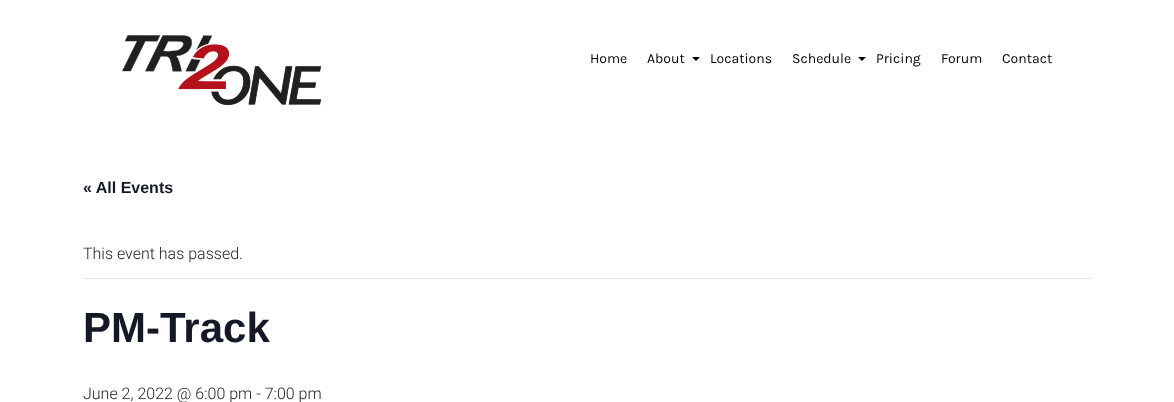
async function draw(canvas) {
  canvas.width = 1174;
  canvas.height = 402;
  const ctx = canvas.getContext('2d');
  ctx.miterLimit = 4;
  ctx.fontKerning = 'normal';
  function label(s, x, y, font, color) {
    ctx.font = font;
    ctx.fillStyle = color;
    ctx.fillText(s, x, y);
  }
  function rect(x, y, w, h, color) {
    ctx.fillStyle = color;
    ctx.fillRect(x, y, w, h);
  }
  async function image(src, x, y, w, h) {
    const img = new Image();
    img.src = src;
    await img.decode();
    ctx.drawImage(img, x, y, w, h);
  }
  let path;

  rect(0, 0, 1174, 402, '#fff');
  await image('assets/img1.png', 122, 35, 199, 70);
  label('Home', 590, 63, '14px Karla', '#000');
  label('About', 647, 63, '14px Karla', '#000');
  path = new Path2D('M692 57H700L696 61Z');
  ctx.fill(path);
  label('Locations', 710, 63, '14px Karla', '#000');
  label('Schedule', 792, 63, '14px Karla', '#000');
  path = new Path2D('M858 57H866L862 61Z');
  ctx.fill(path);
  label('Pricing', 876, 63, '14px Karla', '#000');
  label('Forum', 941, 63, '14px Karla', '#000');
  label('Contact', 1002, 63, '14px Karla', '#000');
  label('« All Events', 83, 193, 'bold 16px Liberation Sans', '#141827');
  rect(83, 278, 1008, 1, '#e4e4e4');
  label('This event has passed.', 83, 259, '300 16px Roboto', '#212529');
  label('PM-Track', 83, 342, 'bold 42px Liberation Sans', '#141827');
  label('June 2, 2022 @ 6:00 pm - 7:00 pm', 83, 399, '300 16px Roboto', '#212529');
}

draw(document.querySelector('canvas'));
